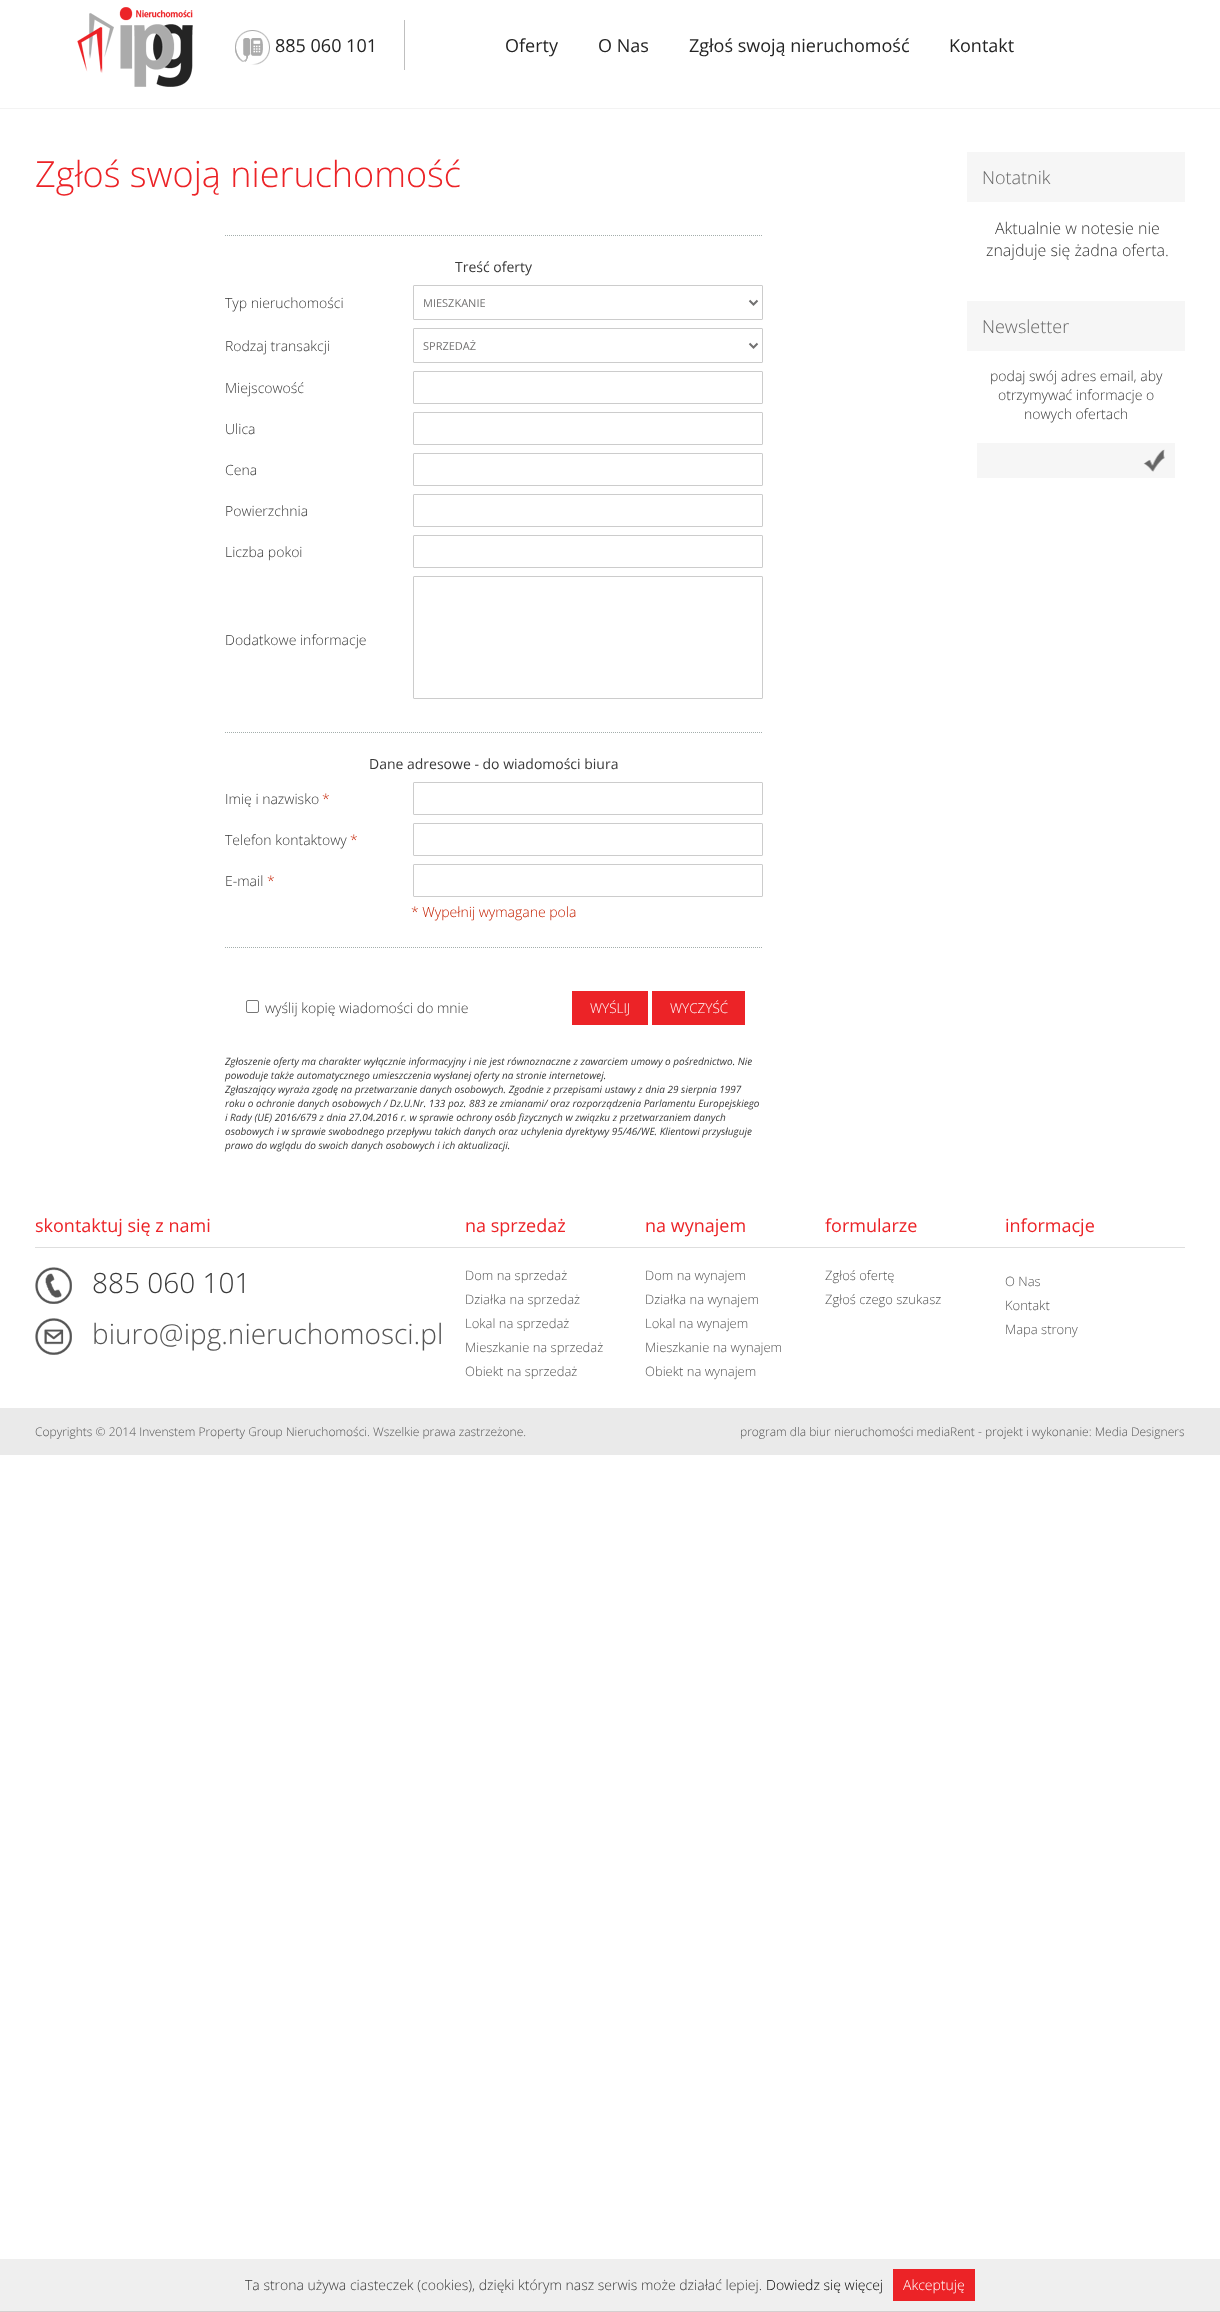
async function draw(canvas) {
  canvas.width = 1220;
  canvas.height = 2312;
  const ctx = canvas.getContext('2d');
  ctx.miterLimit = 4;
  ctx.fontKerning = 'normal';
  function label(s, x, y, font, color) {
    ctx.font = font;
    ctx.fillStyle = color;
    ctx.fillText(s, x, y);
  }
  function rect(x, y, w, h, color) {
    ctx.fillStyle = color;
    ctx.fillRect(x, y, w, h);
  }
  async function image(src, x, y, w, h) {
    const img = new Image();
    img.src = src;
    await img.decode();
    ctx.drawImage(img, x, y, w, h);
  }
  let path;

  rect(0, 0, 1220, 2312, '#fff');
  await image('assets/img1.png', 77, 7, 116, 80);
  rect(404, 20, 1, 50, '#bfbfbf');
  await image('assets/img2.png', 235, 30, 35, 35);
  label('885 060 101', 275, 52, '18px Open Sans', '#242424');
  label('Oferty', 505, 52, '18px Open Sans', '#242424');
  label('O Nas', 598, 52, '18px Open Sans', '#242424');
  label('Zgłoś swoją nieruchomość', 689, 52, '18px Open Sans', '#242424');
  label('Kontakt', 949, 52, '18px Open Sans', '#242424');
  rect(0, 108, 1220, 1, '#f3f3f3');
  label('Zgłoś swoją nieruchomość', 35, 187, '300 36px Open Sans', '#ec2327');
  path = new Path2D('M225 235.5H763');
  ctx.strokeStyle = '#a4aeac';
  ctx.setLineDash([1, 1]);
  ctx.stroke(path);
  label('Treść oferty', 455, 272, '14px Open Sans', '#393939');
  label('Typ nieruchomości', 225, 308, '300 14px Open Sans', '#393939');
  ctx.beginPath();
  ctx.roundRect(413.5, 285.5, 349, 34, 0.5);
  ctx.strokeStyle = '#ccc';
  ctx.setLineDash([]);
  ctx.stroke();
  path = new Path2D('M749.5 300.5L753.5 304.5L757.5 300.5');
  ctx.strokeStyle = '#727171';
  ctx.lineWidth = 2;
  ctx.stroke(path);
  label('MIESZKANIE', 423, 307, '11px Open Sans', '#727171');
  label('Rodzaj transakcji', 225, 351, '300 14px Open Sans', '#393939');
  ctx.beginPath();
  ctx.roundRect(413.5, 328.5, 349, 34, 0.5);
  ctx.strokeStyle = '#ccc';
  ctx.lineWidth = 1;
  ctx.stroke();
  path = new Path2D('M749.5 343.5L753.5 347.5L757.5 343.5');
  ctx.strokeStyle = '#727171';
  ctx.lineWidth = 2;
  ctx.stroke(path);
  label('SPRZEDAŻ', 423, 350, '11px Open Sans', '#727171');
  label('Miejscowość', 225, 393, '300 14px Open Sans', '#393939');
  ctx.beginPath();
  ctx.roundRect(413.5, 371.5, 349, 32, 0.5);
  ctx.strokeStyle = '#ccc';
  ctx.lineWidth = 1;
  ctx.stroke();
  label('Ulica', 225, 434, '300 14px Open Sans', '#393939');
  ctx.beginPath();
  ctx.roundRect(413.5, 412.5, 349, 32, 0.5);
  ctx.stroke();
  label('Cena', 225, 475, '300 14px Open Sans', '#393939');
  ctx.beginPath();
  ctx.roundRect(413.5, 453.5, 349, 32, 0.5);
  ctx.stroke();
  label('Powierzchnia', 225, 516, '300 14px Open Sans', '#393939');
  ctx.beginPath();
  ctx.roundRect(413.5, 494.5, 349, 32, 0.5);
  ctx.stroke();
  label('Liczba pokoi', 225, 557, '300 14px Open Sans', '#393939');
  ctx.beginPath();
  ctx.roundRect(413.5, 535.5, 349, 32, 0.5);
  ctx.stroke();
  label('Dodatkowe informacje', 225, 645, '300 14px Open Sans', '#393939');
  ctx.beginPath();
  ctx.roundRect(413.5, 576.5, 349, 122, 0.5);
  ctx.stroke();
  path = new Path2D('M225 732.5H763');
  ctx.strokeStyle = '#a4aeac';
  ctx.setLineDash([1, 1]);
  ctx.stroke(path);
  label('Dane adresowe - do wiadomości biura', 369, 769, '14px Open Sans', '#393939');
  label('Imię i nazwisko', 225, 804, '300 14px Open Sans', '#393939');
  label('*', 322, 804, '300 14px Open Sans', '#c42000');
  ctx.beginPath();
  ctx.roundRect(413.5, 782.5, 349, 32, 0.5);
  ctx.strokeStyle = '#ccc';
  ctx.setLineDash([]);
  ctx.stroke();
  label('Telefon kontaktowy', 225, 845, '300 14px Open Sans', '#393939');
  label('*', 350, 845, '300 14px Open Sans', '#c42000');
  ctx.beginPath();
  ctx.roundRect(413.5, 823.5, 349, 32, 0.5);
  ctx.stroke();
  label('E-mail', 225, 886, '300 14px Open Sans', '#393939');
  label('*', 267, 886, '300 14px Open Sans', '#c42000');
  ctx.beginPath();
  ctx.roundRect(413.5, 864.5, 349, 32, 0.5);
  ctx.stroke();
  label('* Wypełnij wymagane pola', 411, 917, '300 14px Open Sans', '#c42000');
  path = new Path2D('M225 947.5H763');
  ctx.strokeStyle = '#a4aeac';
  ctx.setLineDash([1, 1]);
  ctx.stroke(path);
  ctx.beginPath();
  ctx.roundRect(246.5, 1000.5, 12, 12, 1.5);
  ctx.strokeStyle = '#767676';
  ctx.setLineDash([]);
  ctx.stroke();
  label('wyślij kopię wiadomości do mnie', 265, 1013, '300 14px Open Sans', '#393939');
  rect(572, 991, 76, 34, '#ec2327');
  label('WYŚLIJ', 590, 1013, '300 13.5px Open Sans', '#fff');
  rect(652, 991, 93, 34, '#ec2327');
  label('WYCZYŚĆ', 670, 1013, '300 13.5px Open Sans', '#fff');
  label('Zgłoszenie oferty ma charakter wyłącznie informacyjny i nie jest równoznaczne z zawarciem umowy o pośrednictwo. Nie', 225, 1065, 'italic 10px Open Sans', '#393939');
  label('powoduje także automatycznego umieszczenia wysłanej oferty na stronie internetowej.', 225, 1079, 'italic 10px Open Sans', '#393939');
  label('Zgłaszający wyraża zgodę na przetwarzanie danych osobowych. Zgodnie z przepisami ustawy z dnia 29 sierpnia 1997', 225, 1093, 'italic 10px Open Sans', '#393939');
  label('roku o ochronie danych osobowych / Dz.U.Nr. 133 poz. 883 ze zmianami/ oraz rozporządzenia Parlamentu Europejskiego', 225, 1107, 'italic 10px Open Sans', '#393939');
  label('i Rady (UE) 2016/679 z dnia 27.04.2016 r. w sprawie ochrony osób fizycznych w związku z przetwarzaniem danych', 225, 1121, 'italic 10px Open Sans', '#393939');
  label('osobowych i w sprawie swobodnego przepływu takich danych oraz uchylenia dyrektywy 95/46/WE. Klientowi przysługuje', 225, 1135, 'italic 10px Open Sans', '#393939');
  label('prawo do wglądu do swoich danych osobowych i ich aktualizacji.', 225, 1149, 'italic 10px Open Sans', '#393939');
  rect(967, 152, 218, 50, '#f6f6f6');
  label('Notatnik', 982, 184, '300 18px Open Sans', '#666');
  label('Aktualnie w notesie nie', 995, 234, '300 16px Open Sans', '#393939');
  label('znajduje się żadna oferta.', 986, 256, '300 16px Open Sans', '#393939');
  rect(967, 301, 218, 50, '#f6f6f6');
  label('Newsletter', 982, 333, '300 18px Open Sans', '#666');
  label('podaj swój adres email, aby', 990, 381, '300 14px Open Sans', '#393939');
  label('otrzymywać informacje o', 998, 400, '300 14px Open Sans', '#393939');
  label('nowych ofertach', 1024, 419, '300 14px Open Sans', '#393939');
  rect(977, 443, 198, 35, '#f6f6f6');
  await image('assets/img3.png', 1143, 449, 22, 23);
  rect(35, 1247, 1150, 1, '#dedede');
  label('skontaktuj się z nami', 35, 1232, '18px Open Sans', '#ec2327');
  await image('assets/img4.png', 35, 1267, 37, 37);
  label('885 060 101', 92, 1293, '300 28px Open Sans', '#393939');
  await image('assets/img5.png', 35, 1318, 37, 37);
  label('biuro@ipg.nieruchomosci.pl', 92, 1344, '300 28px Open Sans', '#555');
  label('na sprzedaż', 465, 1232, '18px Open Sans', '#ec2327');
  label('Dom na sprzedaż', 465, 1280, '300 13px Open Sans', '#555');
  label('Działka na sprzedaż', 465, 1304, '300 13px Open Sans', '#555');
  label('Lokal na sprzedaż', 465, 1328, '300 13px Open Sans', '#555');
  label('Mieszkanie na sprzedaż', 465, 1352, '300 13px Open Sans', '#555');
  label('Obiekt na sprzedaż', 465, 1376, '300 13px Open Sans', '#555');
  label('na wynajem', 645, 1232, '18px Open Sans', '#ec2327');
  label('Dom na wynajem', 645, 1280, '300 13px Open Sans', '#555');
  label('Działka na wynajem', 645, 1304, '300 13px Open Sans', '#555');
  label('Lokal na wynajem', 645, 1328, '300 13px Open Sans', '#555');
  label('Mieszkanie na wynajem', 645, 1352, '300 13px Open Sans', '#555');
  label('Obiekt na wynajem', 645, 1376, '300 13px Open Sans', '#555');
  label('formularze', 825, 1232, '18px Open Sans', '#ec2327');
  label('Zgłoś ofertę', 825, 1280, '300 13px Open Sans', '#555');
  label('Zgłoś czego szukasz', 825, 1304, '300 13px Open Sans', '#555');
  label('informacje', 1005, 1232, '18px Open Sans', '#ec2327');
  label('O Nas', 1005, 1286, '300 13px Open Sans', '#555');
  label('Kontakt', 1005, 1310, '300 13px Open Sans', '#555');
  label('Mapa strony', 1005, 1334, '300 13px Open Sans', '#555');
  rect(0, 1408, 1220, 47, '#eaeaea');
  label('Copyrights © 2014 Invenstem Property Group Nieruchomości. Wszelkie prawa zastrzeżone.', 35, 1436, '300 12px Open Sans', '#555');
  label('program dla biur nieruchomości mediaRent - projekt i wykonanie: Media Designers', 740, 1436, '300 12px Open Sans', '#555');
  rect(0, 2259, 1220, 52, '#efefef');
  rect(0, 2311, 1220, 1, '#d3d0d0');
  label('Ta strona używa ciasteczek (cookies), dzięki którym nasz serwis może działać lepiej.', 245, 2290, '300 14px Open Sans', '#393939');
  label('Dowiedz się więcej', 766, 2290, '300 14px Open Sans', '#000');
  rect(893, 2269, 82, 32, '#ec2327');
  label('Akceptuję', 903, 2290, '300 14px Open Sans', '#fff');
}

draw(document.querySelector('canvas'));
